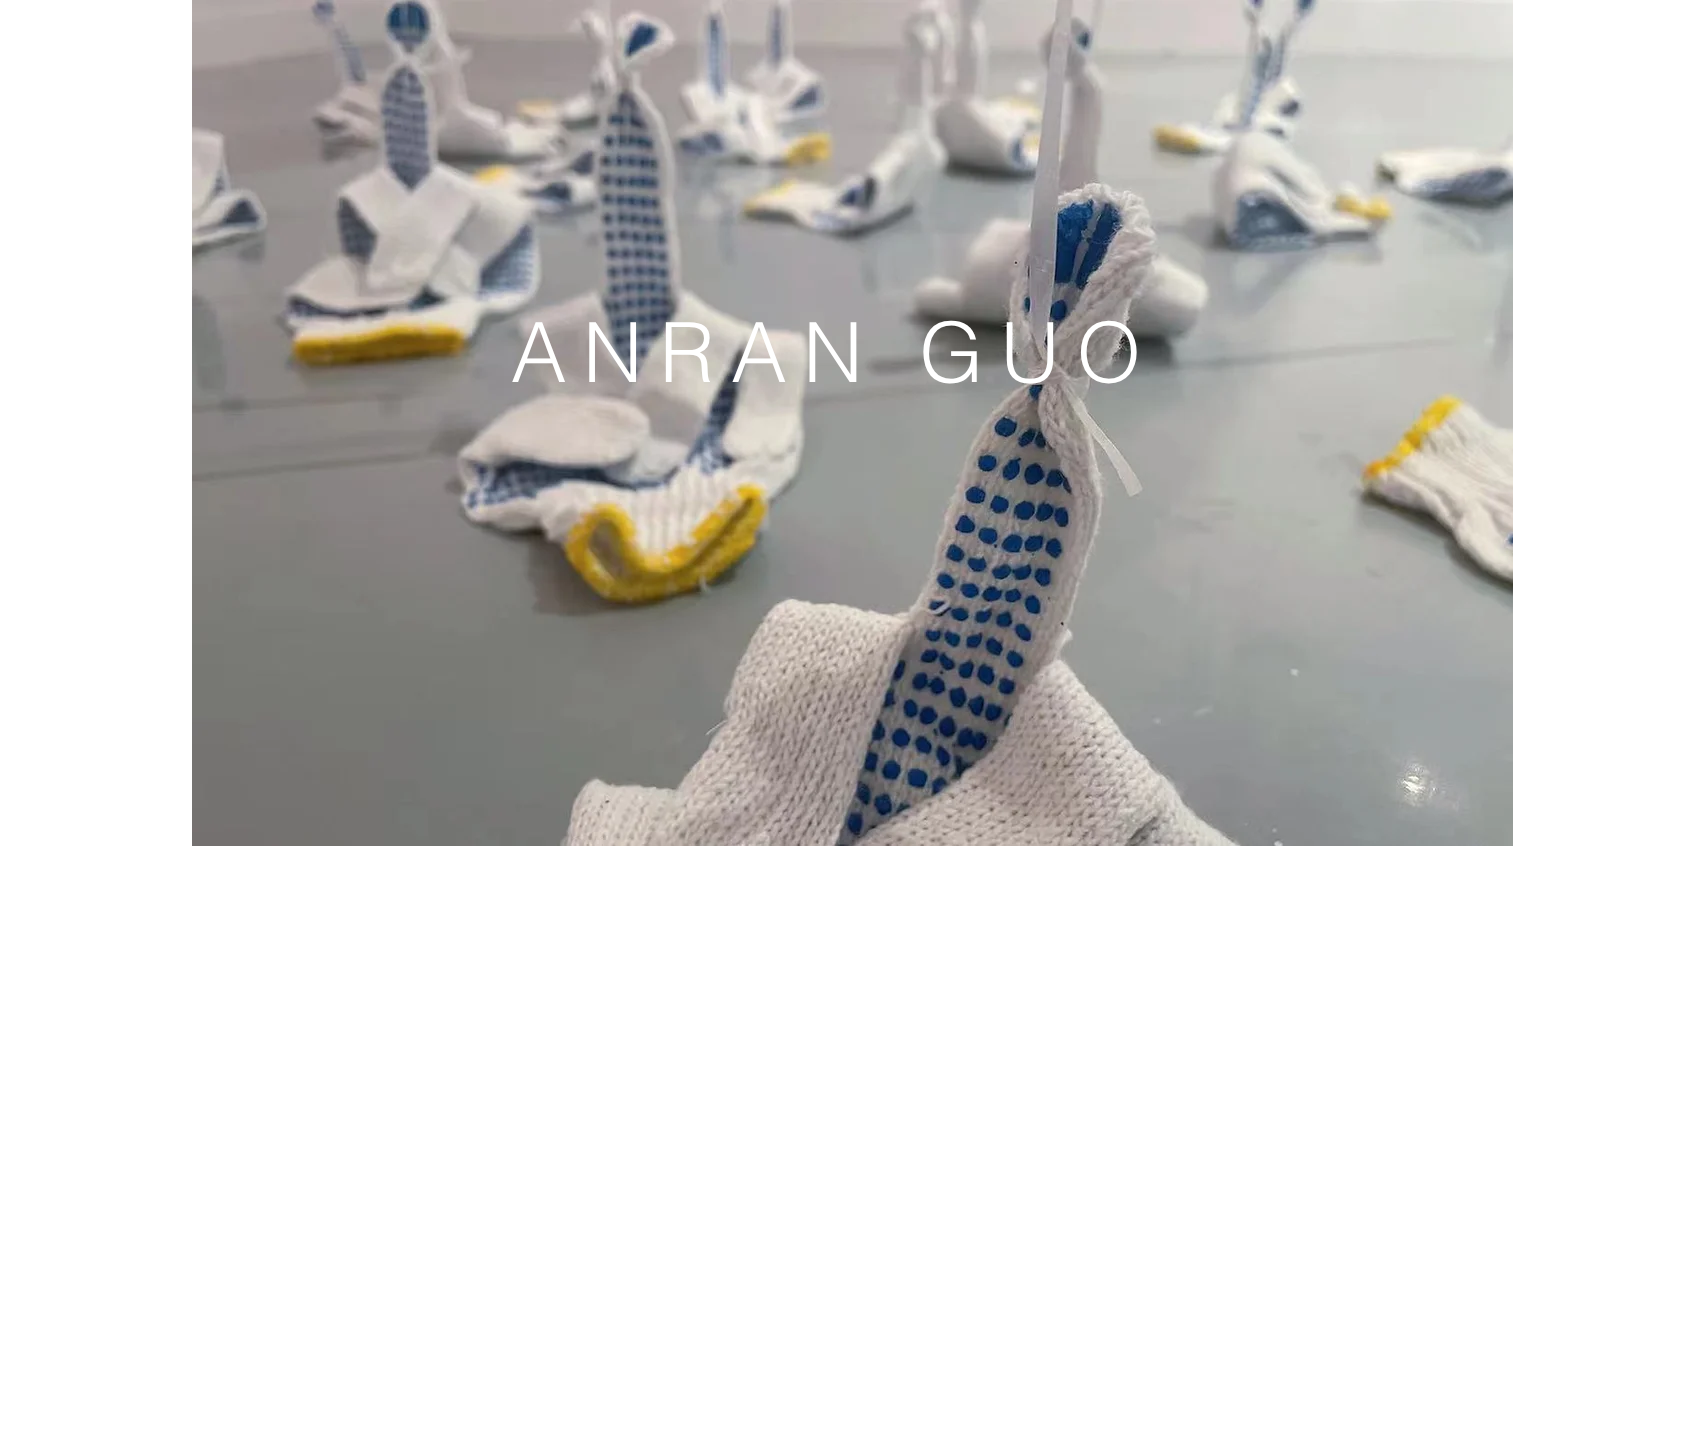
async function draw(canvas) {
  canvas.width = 1703;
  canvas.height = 1430;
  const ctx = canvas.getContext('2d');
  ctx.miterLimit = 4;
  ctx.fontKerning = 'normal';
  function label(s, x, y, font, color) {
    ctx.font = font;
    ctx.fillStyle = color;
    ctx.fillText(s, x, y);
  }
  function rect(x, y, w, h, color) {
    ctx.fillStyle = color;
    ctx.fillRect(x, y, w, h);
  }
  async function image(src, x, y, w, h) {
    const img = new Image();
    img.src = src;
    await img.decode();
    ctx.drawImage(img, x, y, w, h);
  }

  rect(0, 0, 1703, 1430, '#fff');
  await image('assets/img1.png', 192, 0, 1321, 846);
  ctx.letterSpacing = '16.5px';
  label('ANRAN GUO', 511, 382, '300 83px helvetica', '#fff');
}

draw(document.querySelector('canvas'));
